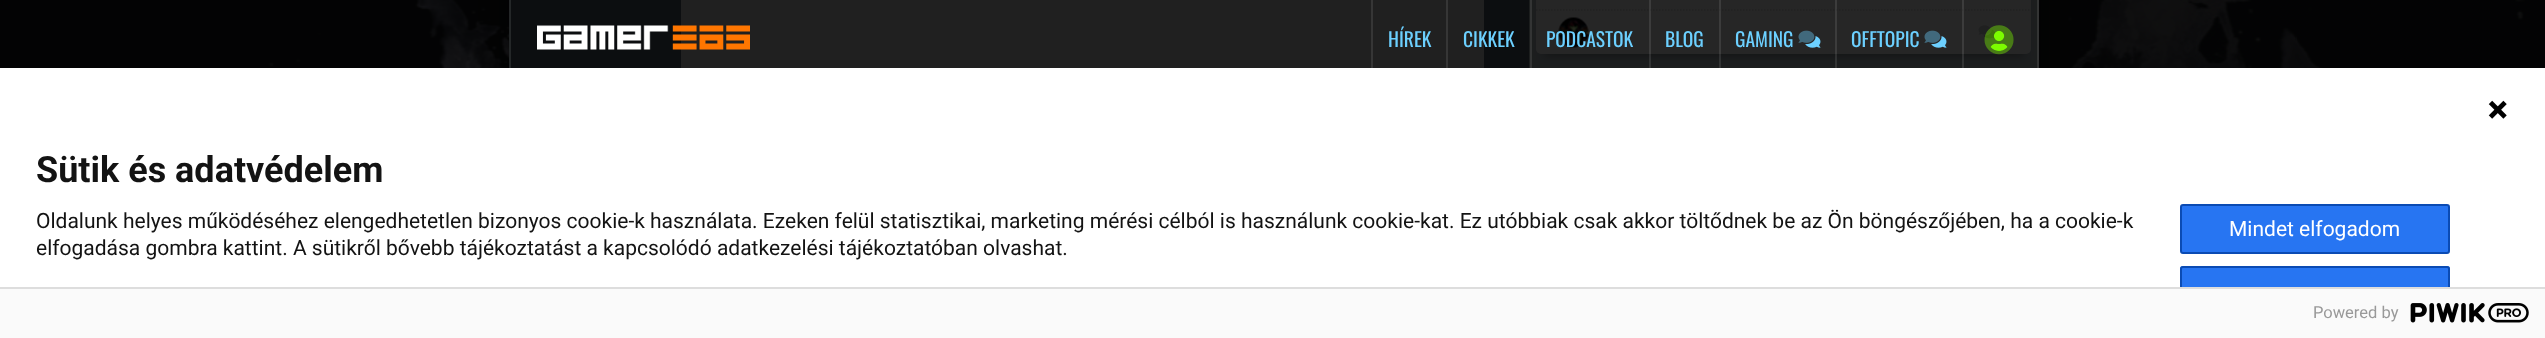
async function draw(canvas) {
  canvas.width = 2545;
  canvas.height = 338;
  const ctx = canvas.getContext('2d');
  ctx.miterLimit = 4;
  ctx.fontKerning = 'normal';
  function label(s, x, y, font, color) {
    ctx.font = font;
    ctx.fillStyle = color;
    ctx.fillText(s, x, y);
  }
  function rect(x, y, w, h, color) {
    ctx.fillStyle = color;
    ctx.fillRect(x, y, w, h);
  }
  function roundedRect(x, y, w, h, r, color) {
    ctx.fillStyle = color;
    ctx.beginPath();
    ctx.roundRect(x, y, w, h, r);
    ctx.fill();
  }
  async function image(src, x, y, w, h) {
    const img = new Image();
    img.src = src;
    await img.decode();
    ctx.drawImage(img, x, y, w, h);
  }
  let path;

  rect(0, 0, 2545, 338, '#181a1c');
  await image('assets/img1.png', 100, 0, 2425, 68);
  ctx.fillStyle = '#00000080';
  ctx.filter = 'blur(22.5px)';
  ctx.beginPath();
  ctx.rect(509, -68, 1530, 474);
  ctx.fill();
  ctx.filter = 'none';
  rect(511, 0, 1018, 68, '#4f626e');
  rect(681, 0, 803, 68, '#d6d6d6');
  rect(1529, 0, 510, 68, '#bac5cb');
  ctx.fillStyle = '#0000004d';
  ctx.filter = 'blur(4px)';
  ctx.beginPath();
  ctx.rect(1544, -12, 480, 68);
  ctx.fill();
  ctx.filter = 'none';
  roundedRect(1536, -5, 495, 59, 5, '#fff');
  path = new Path2D('M1536 10H2031');
  ctx.strokeStyle = '#ddd';
  ctx.lineWidth = 1.5;
  ctx.setLineDash([1.5, 1.5]);
  ctx.stroke(path);
  await image('assets/img2.png', 1558, 17, 31, 31);
  await image('assets/img4.png', 1983, 29, 13, 10);
  await image('assets/img3.png', 1978, 25, 13, 10);
  rect(0, 0, 2545, 68, '#000000d9');
  rect(509, 0, 2, 75, '#242728');
  await image('assets/img5.png', 537, 25, 213, 25);
  rect(1371, 0, 2, 75, '#ffffff1a');
  label('HÍREK', 1388, 47, '19.5px Oswald', '#6cd0ff');
  rect(1446, 0, 2, 75, '#363636');
  label('CIKKEK', 1463, 47, '19.5px Oswald', '#6cd0ff');
  rect(1530, 0, 2, 75, '#ffffff1a');
  label('PODCASTOK', 1546, 47, '19.5px Oswald', '#6cd0ff');
  rect(1649, 0, 2, 75, '#ffffff1a');
  label('BLOG', 1665, 47, '19.5px Oswald', '#6cd0ff');
  rect(1719, 0, 2, 75, '#ffffff1a');
  label('GAMING', 1735, 47, '19.5px Oswald', '#6cd0ff');
  await image('assets/img7.png', 1805, 36, 16, 12);
  await image('assets/img6.png', 1798, 30, 17, 13);
  rect(1835, 0, 2, 75, '#ffffff1a');
  label('OFFTOPIC', 1851, 47, '19.5px Oswald', '#6cd0ff');
  await image('assets/img7.png', 1931, 36, 16, 12);
  await image('assets/img6.png', 1924, 30, 17, 13);
  rect(2037, 0, 2, 75, '#ffffff1a');
  rect(1962, 0, 2, 75, '#ffffff1a');
  await image('assets/img9.png', 1990, 30, 18, 21);
  await image('assets/img8.png', 1984, 25, 30, 30);
  rect(0, 68, 2545, 219, '#fff');
  await image('assets/img10.png', 2488, 100, 19, 19);
  label('Sütik és adatvédelem', 36, 182, 'bold 36px Roboto', '#131313');
  label('Oldalunk helyes működéséhez elengedhetetlen bizonyos cookie-k használata. Ezeken felül statisztikai, marketing mérési célból is használunk cookie-kat. Ez utóbbiak csak akkor töltődnek be az Ön böngészőjében, ha a cookie-k', 36, 228, '21px Roboto', '#131313');
  label('elfogadása gombra kattint. A sütikről bővebb tájékoztatást a kapcsolódó adatkezelési tájékoztatóban olvashat.', 36, 255, '21px Roboto', '#131313');
  ctx.fillStyle = '#2775f2';
  ctx.beginPath();
  ctx.roundRect(2181, 205, 268, 48, 2);
  ctx.fill();
  ctx.strokeStyle = '#0b4bb3';
  ctx.lineWidth = 2;
  ctx.setLineDash([]);
  ctx.stroke();
  label('Mindet elfogadom', 2229, 236, '21px Roboto', '#fff');
  ctx.fillStyle = '#2775f2';
  ctx.beginPath();
  ctx.roundRect(2180, 266, 270, 21, [3, 3, 0, 0]);
  ctx.fill();
  rect(0, 289, 2545, 49, '#fafafa');
  rect(0, 287, 2545, 2, '#ddd');
  label('Powered by', 2313, 318, '16.5px Roboto', '#999');
  await image('assets/img11.png', 2410, 303, 119, 20);
  ctx.save();
  ctx.beginPath();
  ctx.rect(0, 143, 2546, 144);
  ctx.clip();
  ctx.beginPath();
  ctx.roundRect(2181, 267, 268, 47, 2);
  ctx.stroke();
  ctx.restore();
}

draw(document.querySelector('canvas'));
